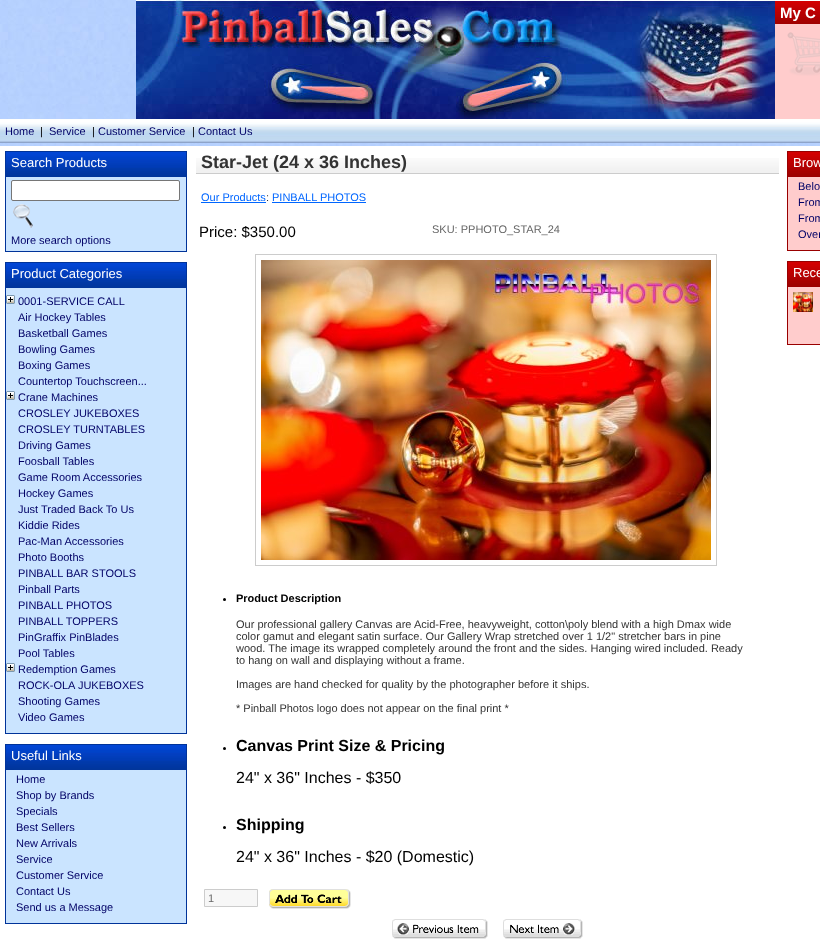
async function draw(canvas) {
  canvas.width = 820;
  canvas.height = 952;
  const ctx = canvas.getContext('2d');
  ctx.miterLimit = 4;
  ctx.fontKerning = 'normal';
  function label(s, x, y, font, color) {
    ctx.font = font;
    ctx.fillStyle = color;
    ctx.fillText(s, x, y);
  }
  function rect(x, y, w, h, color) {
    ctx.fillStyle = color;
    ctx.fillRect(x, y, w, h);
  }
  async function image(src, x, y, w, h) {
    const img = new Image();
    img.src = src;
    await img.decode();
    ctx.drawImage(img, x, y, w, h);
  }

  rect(0, 0, 820, 952, '#fff');
  await image('assets/img1.png', 0, 0, 820, 146);
  await image('assets/img2.png', 136, 0, 639, 119);
  rect(775, 0, 45, 1, '#fff');
  rect(775, 24, 45, 95, '#fcc');
  await image('assets/img3.png', 787, 32, 33, 44);
  await image('assets/img4.png', 775, 1, 45, 23);
  label('My C', 780, 18, 'bold 15px Liberation Sans', '#fff');
  await image('assets/img5.png', 0, 119, 820, 24);
  label('Home', 5, 135, '11px Liberation Sans', '#006');
  label('|', 40, 135, '11px Liberation Sans', '#000');
  label('Service', 49, 135, '11px Liberation Sans', '#006');
  label('|', 92, 135, '11px Liberation Sans', '#000');
  label('Customer Service', 98, 135, '11px Liberation Sans', '#006');
  label('|', 192, 135, '11px Liberation Sans', '#000');
  label('Contact Us', 198, 135, '11px Liberation Sans', '#006');
  rect(6, 177, 180, 74, '#cae4ff');
  await image('assets/img6.png', 6, 152, 180, 25);
  ctx.strokeStyle = '#039';
  ctx.strokeRect(5.5, 151.5, 181, 100);
  label('Search Products', 11, 167, '13px Liberation Sans', '#fff');
  ctx.beginPath();
  ctx.roundRect(11.5, 180.5, 168, 20, 1.5);
  ctx.fill();
  ctx.strokeStyle = '#767676';
  ctx.stroke();
  await image('assets/img7.png', 13, 204, 20, 24);
  label('More search options', 11, 244, '11px Liberation Sans', '#006');
  rect(6, 288, 180, 445, '#cae4ff');
  await image('assets/img6.png', 6, 263, 180, 25);
  ctx.strokeStyle = '#039';
  ctx.strokeRect(5.5, 262.5, 181, 471);
  label('Product Categories', 11, 278, '13px Liberation Sans', '#fff');
  await image('assets/img8.png', 6, 295, 9, 9);
  label('0001-SERVICE CALL', 18, 305, '11px Liberation Sans', '#006');
  label('Air Hockey Tables', 18, 321, '11px Liberation Sans', '#006');
  label('Basketball Games', 18, 337, '11px Liberation Sans', '#006');
  label('Bowling Games', 18, 353, '11px Liberation Sans', '#006');
  label('Boxing Games', 18, 369, '11px Liberation Sans', '#006');
  label('Countertop Touchscreen...', 18, 385, '11px Liberation Sans', '#006');
  await image('assets/img8.png', 6, 391, 9, 9);
  label('Crane Machines', 18, 401, '11px Liberation Sans', '#006');
  label('CROSLEY JUKEBOXES', 18, 417, '11px Liberation Sans', '#006');
  label('CROSLEY TURNTABLES', 18, 433, '11px Liberation Sans', '#006');
  label('Driving Games', 18, 449, '11px Liberation Sans', '#006');
  label('Foosball Tables', 18, 465, '11px Liberation Sans', '#006');
  label('Game Room Accessories', 18, 481, '11px Liberation Sans', '#006');
  label('Hockey Games', 18, 497, '11px Liberation Sans', '#006');
  label('Just Traded Back To Us', 18, 513, '11px Liberation Sans', '#006');
  label('Kiddie Rides', 18, 529, '11px Liberation Sans', '#006');
  label('Pac-Man Accessories', 18, 545, '11px Liberation Sans', '#006');
  label('Photo Booths', 18, 561, '11px Liberation Sans', '#006');
  label('PINBALL BAR STOOLS', 18, 577, '11px Liberation Sans', '#006');
  label('Pinball Parts', 18, 593, '11px Liberation Sans', '#006');
  label('PINBALL PHOTOS', 18, 609, '11px Liberation Sans', '#006');
  label('PINBALL TOPPERS', 18, 625, '11px Liberation Sans', '#006');
  label('PinGraffix PinBlades', 18, 641, '11px Liberation Sans', '#006');
  label('Pool Tables', 18, 657, '11px Liberation Sans', '#006');
  await image('assets/img8.png', 6, 663, 9, 9);
  label('Redemption Games', 18, 673, '11px Liberation Sans', '#006');
  label('ROCK-OLA JUKEBOXES', 18, 689, '11px Liberation Sans', '#006');
  label('Shooting Games', 18, 705, '11px Liberation Sans', '#006');
  label('Video Games', 18, 721, '11px Liberation Sans', '#006');
  rect(6, 770, 180, 153, '#cae4ff');
  await image('assets/img6.png', 6, 745, 180, 25);
  ctx.strokeRect(5.5, 744.5, 181, 179);
  label('Useful Links', 11, 760, '13px Liberation Sans', '#fff');
  label('Home', 16, 783, '11px Liberation Sans', '#006');
  label('Shop by Brands', 16, 799, '11px Liberation Sans', '#006');
  label('Specials', 16, 815, '11px Liberation Sans', '#006');
  label('Best Sellers', 16, 831, '11px Liberation Sans', '#006');
  label('New Arrivals', 16, 847, '11px Liberation Sans', '#006');
  label('Service', 16, 863, '11px Liberation Sans', '#006');
  label('Customer Service', 16, 879, '11px Liberation Sans', '#006');
  label('Contact Us', 16, 895, '11px Liberation Sans', '#006');
  label('Send us a Message', 16, 911, '11px Liberation Sans', '#006');
  await image('assets/img9.png', 196, 158, 583, 15);
  rect(196, 173, 583, 1, '#ccc');
  label('Star-Jet (24 x 36 Inches)', 201, 168, 'bold 18px Liberation Sans', '#333');
  label('Our Products', 201, 201, '11px Liberation Sans', '#06f');
  rect(201, 202, 65, 1, '#06f');
  label(':', 266, 201, '11px Liberation Sans', '#333');
  label('PINBALL PHOTOS', 272, 201, '11px Liberation Sans', '#06f');
  rect(272, 202, 94, 1, '#06f');
  label('Price: $350.00', 199, 237, '15px Liberation Sans', '#000');
  label('SKU: PPHOTO_STAR_24', 432, 233, '11px Liberation Sans', '#666');
  ctx.strokeStyle = '#ccc';
  ctx.strokeRect(255.5, 254.5, 461, 311);
  await image('assets/img10.png', 261, 260, 450, 300);
  ctx.fillStyle = '#000';
  ctx.beginPath();
  ctx.arc(224.5, 599.5, 1.5, 0, 2 * Math.PI);
  ctx.fill();
  label('Product Description', 236, 602, 'bold 11px Liberation Sans', '#000');
  label('Our professional gallery Canvas are Acid-Free, heavyweight, cotton\\poly blend with a high Dmax wide', 236, 628, '11px Liberation Sans', '#333');
  label('color gamut and elegant satin surface. Our Gallery Wrap stretched over 1 1/2" stretcher bars in pine', 236, 640, '11px Liberation Sans', '#333');
  label('wood. The image its wrapped completely around the front and the sides. Hanging wired included. Ready', 236, 652, '11px Liberation Sans', '#333');
  label('to hang on wall and displaying without a frame.', 236, 664, '11px Liberation Sans', '#333');
  label('Images are hand checked for quality by the photographer before it ships.', 236, 688, '11px Liberation Sans', '#333');
  label('* Pinball Photos logo does not appear on the final print *', 236, 712, '11px Liberation Sans', '#333');
  ctx.fillStyle = '#000';
  ctx.beginPath();
  ctx.arc(224.5, 748.5, 1.5, 0, 2 * Math.PI);
  ctx.fill();
  label('Canvas Print Size & Pricing', 236, 751, 'bold 16px Liberation Sans', '#000');
  label('24" x 36" Inches - $350', 236, 783, '16px Liberation Sans', '#000');
  ctx.beginPath();
  ctx.arc(224.5, 827.5, 1.5, 0, 2 * Math.PI);
  ctx.fill();
  label('Shipping', 236, 830, 'bold 16px Liberation Sans', '#000');
  label('24" x 36" Inches - $20 (Domestic)', 236, 862, '16px Liberation Sans', '#000');
  ctx.fillStyle = '#f7f7f7';
  ctx.beginPath();
  ctx.rect(204.5, 889.5, 53, 17);
  ctx.fill();
  ctx.stroke();
  label('1', 208, 902, '11px Liberation Sans', '#666');
  await image('assets/img11.png', 269, 889, 82, 20);
  await image('assets/img12.png', 392, 919, 96, 20);
  await image('assets/img13.png', 503, 919, 80, 20);
  rect(788, 177, 32, 73, '#fcc');
  await image('assets/img14.png', 788, 152, 32, 25);
  ctx.strokeStyle = '#900';
  ctx.strokeRect(787.5, 151.5, 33, 99);
  label('Brow', 793, 167, '13px Liberation Sans', '#fff');
  label('Belo', 798, 190, '11px Liberation Sans', '#006');
  label('From', 798, 206, '11px Liberation Sans', '#006');
  label('From', 798, 222, '11px Liberation Sans', '#006');
  label('Over', 798, 238, '11px Liberation Sans', '#006');
  rect(788, 287, 32, 57, '#fcc');
  await image('assets/img14.png', 788, 262, 32, 25);
  ctx.strokeRect(787.5, 261.5, 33, 83);
  label('Rece', 793, 277, '13px Liberation Sans', '#fff');
  await image('assets/img15.png', 793, 292, 20, 20);
}

draw(document.querySelector('canvas'));
